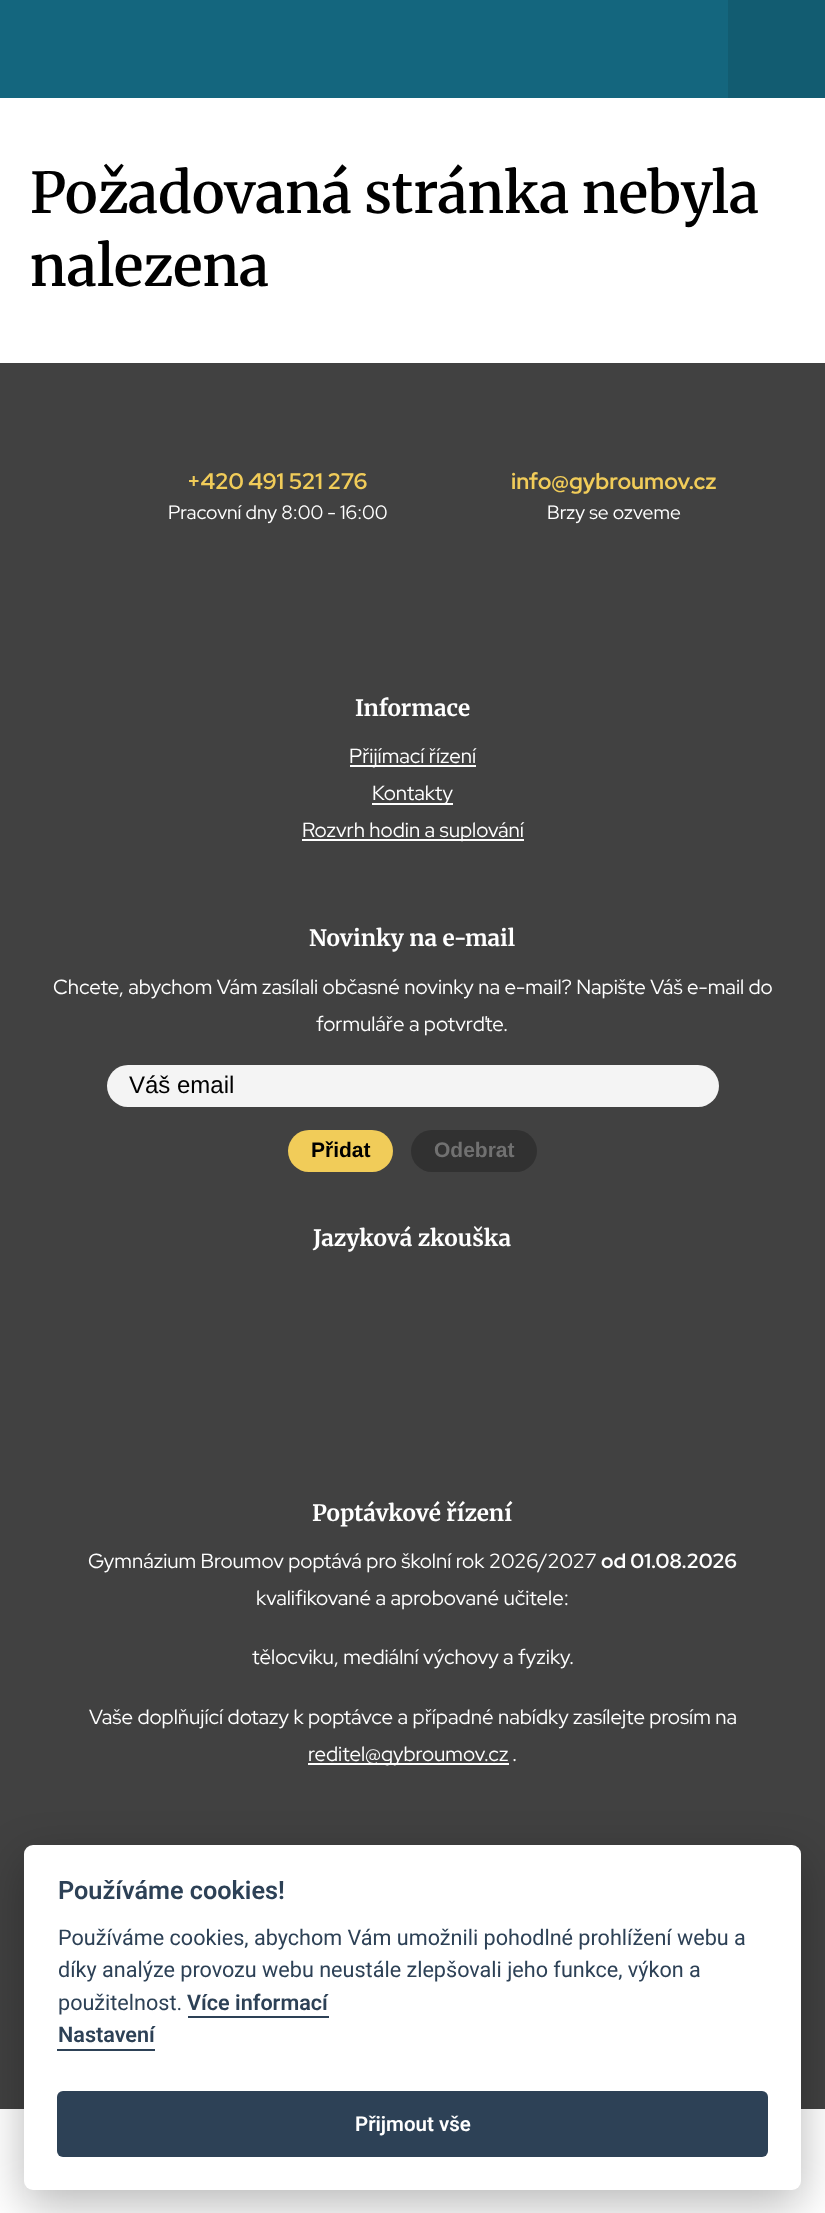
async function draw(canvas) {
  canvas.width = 825;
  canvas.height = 2213;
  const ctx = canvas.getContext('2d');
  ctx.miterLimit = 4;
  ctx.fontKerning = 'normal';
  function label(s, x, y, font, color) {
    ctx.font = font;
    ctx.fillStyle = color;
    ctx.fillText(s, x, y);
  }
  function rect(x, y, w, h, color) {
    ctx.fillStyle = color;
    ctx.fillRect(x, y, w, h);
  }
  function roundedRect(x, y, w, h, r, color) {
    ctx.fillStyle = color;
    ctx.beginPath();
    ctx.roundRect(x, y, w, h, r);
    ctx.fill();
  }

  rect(0, 0, 825, 2213, '#fff');
  rect(0, 0, 728, 98, '#14667e');
  rect(728, 0, 97, 98, '#125c71');
  label('Po', 30, 213, '600 56.2px Merriweather', '#000');
  label('ž', 98, 213, '600 56.2px "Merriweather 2"', '#000');
  label('adovaná stránka nebyla', 128, 213, '600 56.2px Merriweather', '#000');
  label('nalezena', 30, 286, '600 56.2px Merriweather', '#000');
  rect(0, 363, 825, 1746, '#414141');
  label('+420 491 521 276', 187, 489, 'bold 22.5px Red Hat Display', '#f1cc59');
  label('Pracovní dny 8:00 - 16:00', 168, 519, '19.25px Red Hat Display', '#fff');
  label('info@gybroumov.cz', 511, 489, 'bold 22.5px Red Hat Display', '#f1cc59');
  label('Brzy se ozveme', 547, 519, '19.25px Red Hat Display', '#fff');
  label('Informace', 355, 716, 'bold 22.5px Merriweather', '#fff');
  rect(350, 765, 126, 2, '#fff');
  label('Přijímací řízení', 349, 763, '20.5px Red Hat Display', '#fff');
  rect(372, 803, 81, 2, '#fff');
  label('Kontakty', 372, 800, '20.5px Red Hat Display', '#fff');
  rect(302, 839, 222, 2, '#fff');
  label('Rozvrh hodin a suplování', 302, 837, '20.5px Red Hat Display', '#fff');
  label('Novinky na e-mail', 309, 946, 'bold 22.5px Merriweather', '#fff');
  label('Chcete, abychom Vám zasílali občasné novinky na e-mail? Napište Váš e-mail do', 53, 994, '20.5px Red Hat Display', '#fff');
  label('formuláře a potvrďte.', 316, 1031, '20.5px Red Hat Display', '#fff');
  roundedRect(107, 1065, 612, 42, 21, '#f4f4f4');
  label('Váš email', 129, 1093, '24px Liberation Sans', '#000');
  roundedRect(288, 1130, 105, 42, 21, '#f1cc59');
  label('Přidat', 311, 1157, 'bold 21px Liberation Sans', '#000');
  roundedRect(411, 1130, 126, 42, 21, '#313131');
  label('Odebrat', 434, 1157, 'bold 21px Liberation Sans', '#717171');
  label('Jazyková zkouška', 313, 1246, 'bold 22.5px Merriweather', '#fff');
  label('Poptávkové řízení', 312, 1521, 'bold 22.5px Merriweather', '#fff');
  label('Gymnázium Broumov poptává pro školní rok 2026/2027', 88, 1568, '20.5px Red Hat Display', '#fff');
  label('od 01.08.2026', 601, 1568, 'bold 20.5px Red Hat Display', '#fff');
  label('kvalifikované a aprobované učitele:', 256, 1605, '20.5px Red Hat Display', '#fff');
  label('tělocviku, mediální výchovy a fyziky.', 252, 1664, '20.5px Red Hat Display', '#fff');
  label('Vaše doplňující dotazy k poptávce a případné nabídky zasílejte prosím na', 89, 1724, '20.5px Red Hat Display', '#fff');
  rect(308, 1763, 201, 2, '#fff');
  label('reditel@gybroumov.cz', 308, 1761, '20.5px Red Hat Display', '#fff');
  label('.', 512, 1761, '20.5px Red Hat Display', '#fff');
  ctx.fillStyle = '#02020347';
  ctx.filter = 'blur(22.5px)';
  ctx.beginPath();
  ctx.roundRect(24, 1860, 777, 345, 9);
  ctx.fill();
  ctx.filter = 'none';
  roundedRect(24, 1845, 777, 345, 9, '#fff');
  label('Používáme cookies!', 58, 1899, '600 25.25px Roboto', '#2d4156');
  label('Používáme cookies, abychom Vám umožnili pohodlné prohlížení webu a', 58, 1945, '21.6px Roboto', '#2d4156');
  label('díky analýze provozu webu neustále zlepšovali jeho funkce, výkon a', 58, 1977, '21.6px Roboto', '#2d4156');
  label('použitelnost.', 58, 2010, '21.6px Roboto', '#2d4156');
  label('Více informací', 187, 2010, '600 21.6px Roboto', '#2d4156');
  rect(188, 2016, 141, 2, '#2d4156');
  label('Nastavení', 58, 2042, '600 21.6px Roboto', '#2d4156');
  rect(57, 2049, 98, 2, '#2d4156');
  roundedRect(57, 2091, 711, 66, 6, '#2d4156');
  label('Přijmout vše', 355, 2131, '600 20.5px Roboto', '#fff');
}

draw(document.querySelector('canvas'));
